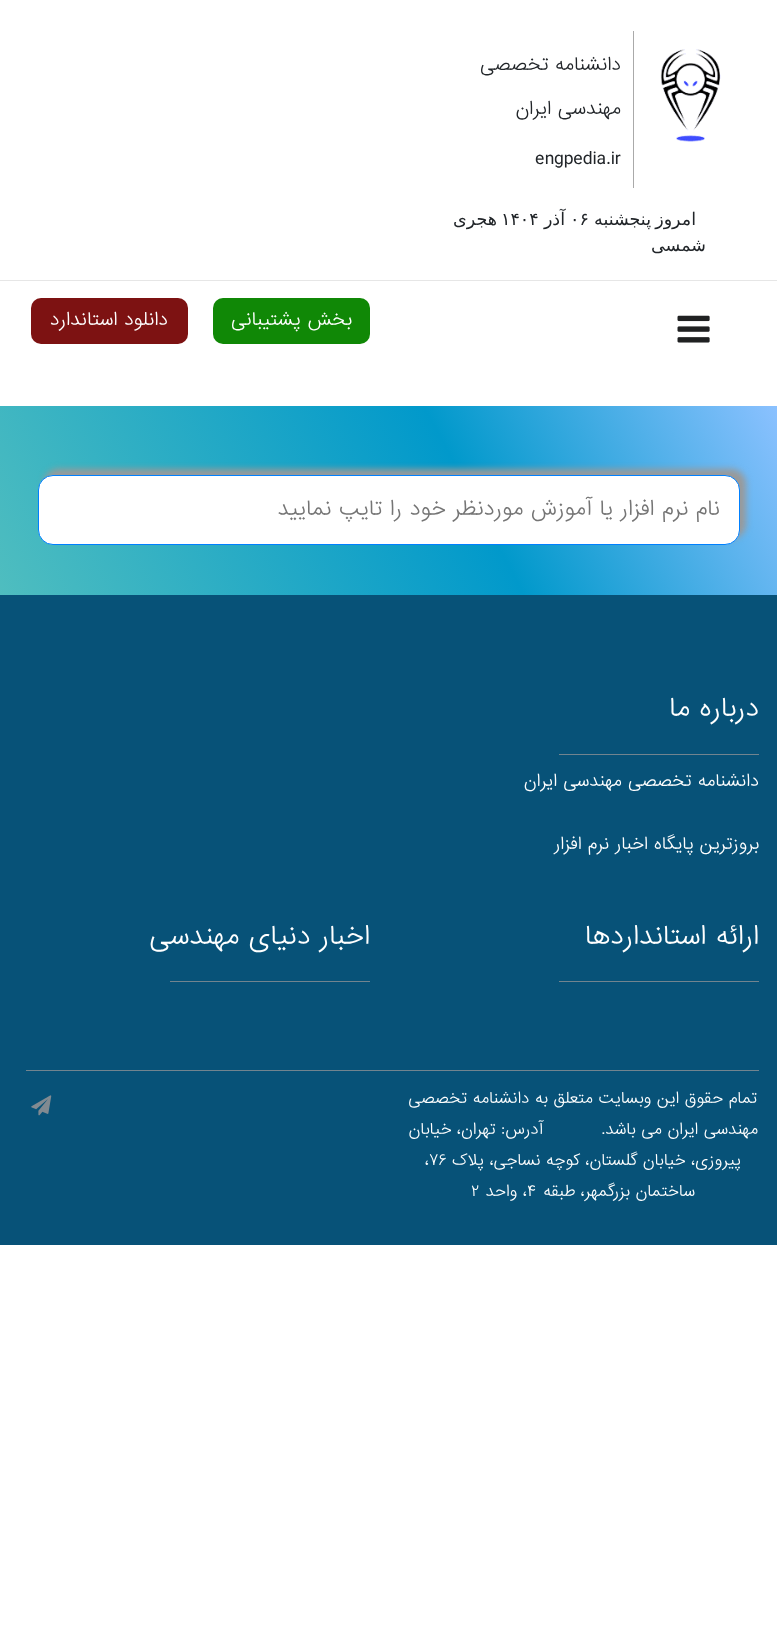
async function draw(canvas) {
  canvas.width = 777;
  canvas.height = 1631;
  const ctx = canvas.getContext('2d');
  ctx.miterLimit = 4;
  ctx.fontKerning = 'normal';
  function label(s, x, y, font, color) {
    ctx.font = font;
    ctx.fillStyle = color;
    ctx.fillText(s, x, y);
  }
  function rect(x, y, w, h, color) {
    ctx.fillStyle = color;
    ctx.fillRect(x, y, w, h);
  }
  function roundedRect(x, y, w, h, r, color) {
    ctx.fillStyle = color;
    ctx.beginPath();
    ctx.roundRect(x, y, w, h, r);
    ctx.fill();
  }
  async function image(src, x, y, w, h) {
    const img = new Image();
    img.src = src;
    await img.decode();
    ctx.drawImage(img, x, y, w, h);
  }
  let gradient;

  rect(0, 0, 777, 1631, '#fff');
  await image('assets/img1.png', 660, 49, 61, 93);
  rect(633, 31, 1, 157, '#aaa');
  ctx.direction = 'rtl';
  label('دانشنامه‌ تخصصی‌', 621, 70, '300 17.5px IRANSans', '#212529');
  label('مهندسی‌ ایران', 621, 114, '300 17.5px IRANSans', '#212529');
  ctx.direction = 'ltr';
  label('engpedia.ir', 535, 164, '300 17.5px IRANSans', '#212529');
  ctx.direction = 'rtl';
  label('امروز', 696, 225, '17.5px DejaVu Sans', '#212529');
  label('پنجشنبه', 651, 225, '17.5px DejaVu Sans', '#212529');
  ctx.direction = 'ltr';
  label('۰۶', 570, 225, '17.5px DejaVu Sans', '#212529');
  ctx.direction = 'rtl';
  label('آذر', 565, 225, '17.5px DejaVu Sans', '#212529');
  ctx.direction = 'ltr';
  label('۱۴۰۴', 501, 225, '17.5px DejaVu Sans', '#212529');
  ctx.direction = 'rtl';
  label('هجری', 497, 225, '17.5px DejaVu Sans', '#212529');
  label('شمسی', 706, 251, '17.5px DejaVu Sans', '#212529');
  rect(0, 280, 777, 1, '#e6e6e6');
  await image('assets/img2.png', 677, 315, 33, 28);
  roundedRect(213, 298, 157, 46, 10, '#108806');
  label('بخش پشتیبانی', 352, 325, '300 17.5px IRANSans', '#fff');
  roundedRect(31, 298, 157, 46, 10, '#7d1212');
  label('دانلود استاندارد', 168, 325, '300 17.5px IRANSans', '#fff');
  gradient = ctx.createLinearGradient(44, 690, 734, 324);
  gradient.addColorStop(0, '#50bebf');
  gradient.addColorStop(0.6, '#0199cb');
  gradient.addColorStop(1, '#8bc1ff');
  ctx.fillStyle = gradient;
  ctx.fillRect(0, 406, 777, 189);
  ctx.fillStyle = '#999';
  ctx.filter = 'blur(3px)';
  ctx.beginPath();
  ctx.roundRect(44, 469, 702, 70, 15);
  ctx.fill();
  ctx.filter = 'none';
  ctx.fillStyle = '#fff';
  ctx.beginPath();
  ctx.roundRect(38.5, 475.5, 701, 69, 14.5);
  ctx.fill();
  ctx.strokeStyle = '#0080ff';
  ctx.stroke();
  label('نام نرم افزار یا آموزش موردنظر خود را تایپ نمایید', 720, 515, '300 20px IRANSans', '#757575');
  rect(0, 595, 777, 650, '#075278');
  label('درباره ما', 759, 716, '300 25px IRANSans', '#fff');
  rect(559, 754, 200, 1, '#71848f');
  label('دانشنامه تخصصی مهندسی ایران', 759, 786, '300 16.25px IRANSans', '#fff');
  label('بروزترین پایگاه اخبار نرم افزار', 759, 849, '300 16.25px IRANSans', '#fff');
  label('ارائه استانداردها', 759, 944, '300 25px IRANSans', '#fff');
  rect(559, 981, 200, 1, '#71848f');
  label('اخبار دنیای مهندسی', 370, 944, '300 25px IRANSans', '#fff');
  rect(170, 981, 200, 1, '#71848f');
  rect(26, 1070, 733, 1, '#71848f');
  label('تمام حقوق این وبسایت متعلق به دانشنامه تخصصی', 757, 1103, '300 15px IRANSans', '#fff');
  label('مهندسی ایران می باشد.', 758, 1134, '300 15px IRANSans', '#fff');
  label('آدرس: تهران، خیابان', 543, 1134, '300 15px IRANSans', '#fff');
  label('پیروزی، خیابان گلستان، کوچه نساجی، پلاک', 741, 1165, '300 15px IRANSans', '#fff');
  ctx.direction = 'ltr';
  label('،۷۶', 425, 1165, '300 15px IRANSans', '#fff');
  ctx.direction = 'rtl';
  label('ساختمان بزرگمهر، طبقه', 695, 1196, '300 15px IRANSans', '#fff');
  ctx.direction = 'ltr';
  label('۴', 527, 1196, '300 15px IRANSans', '#fff');
  ctx.direction = 'rtl';
  label('، واحد', 527, 1196, '300 15px IRANSans', '#fff');
  ctx.direction = 'ltr';
  label('۲', 471, 1196, '300 15px IRANSans', '#fff');
  await image('assets/img3.png', 31, 1095, 21, 21);
}

draw(document.querySelector('canvas'));
